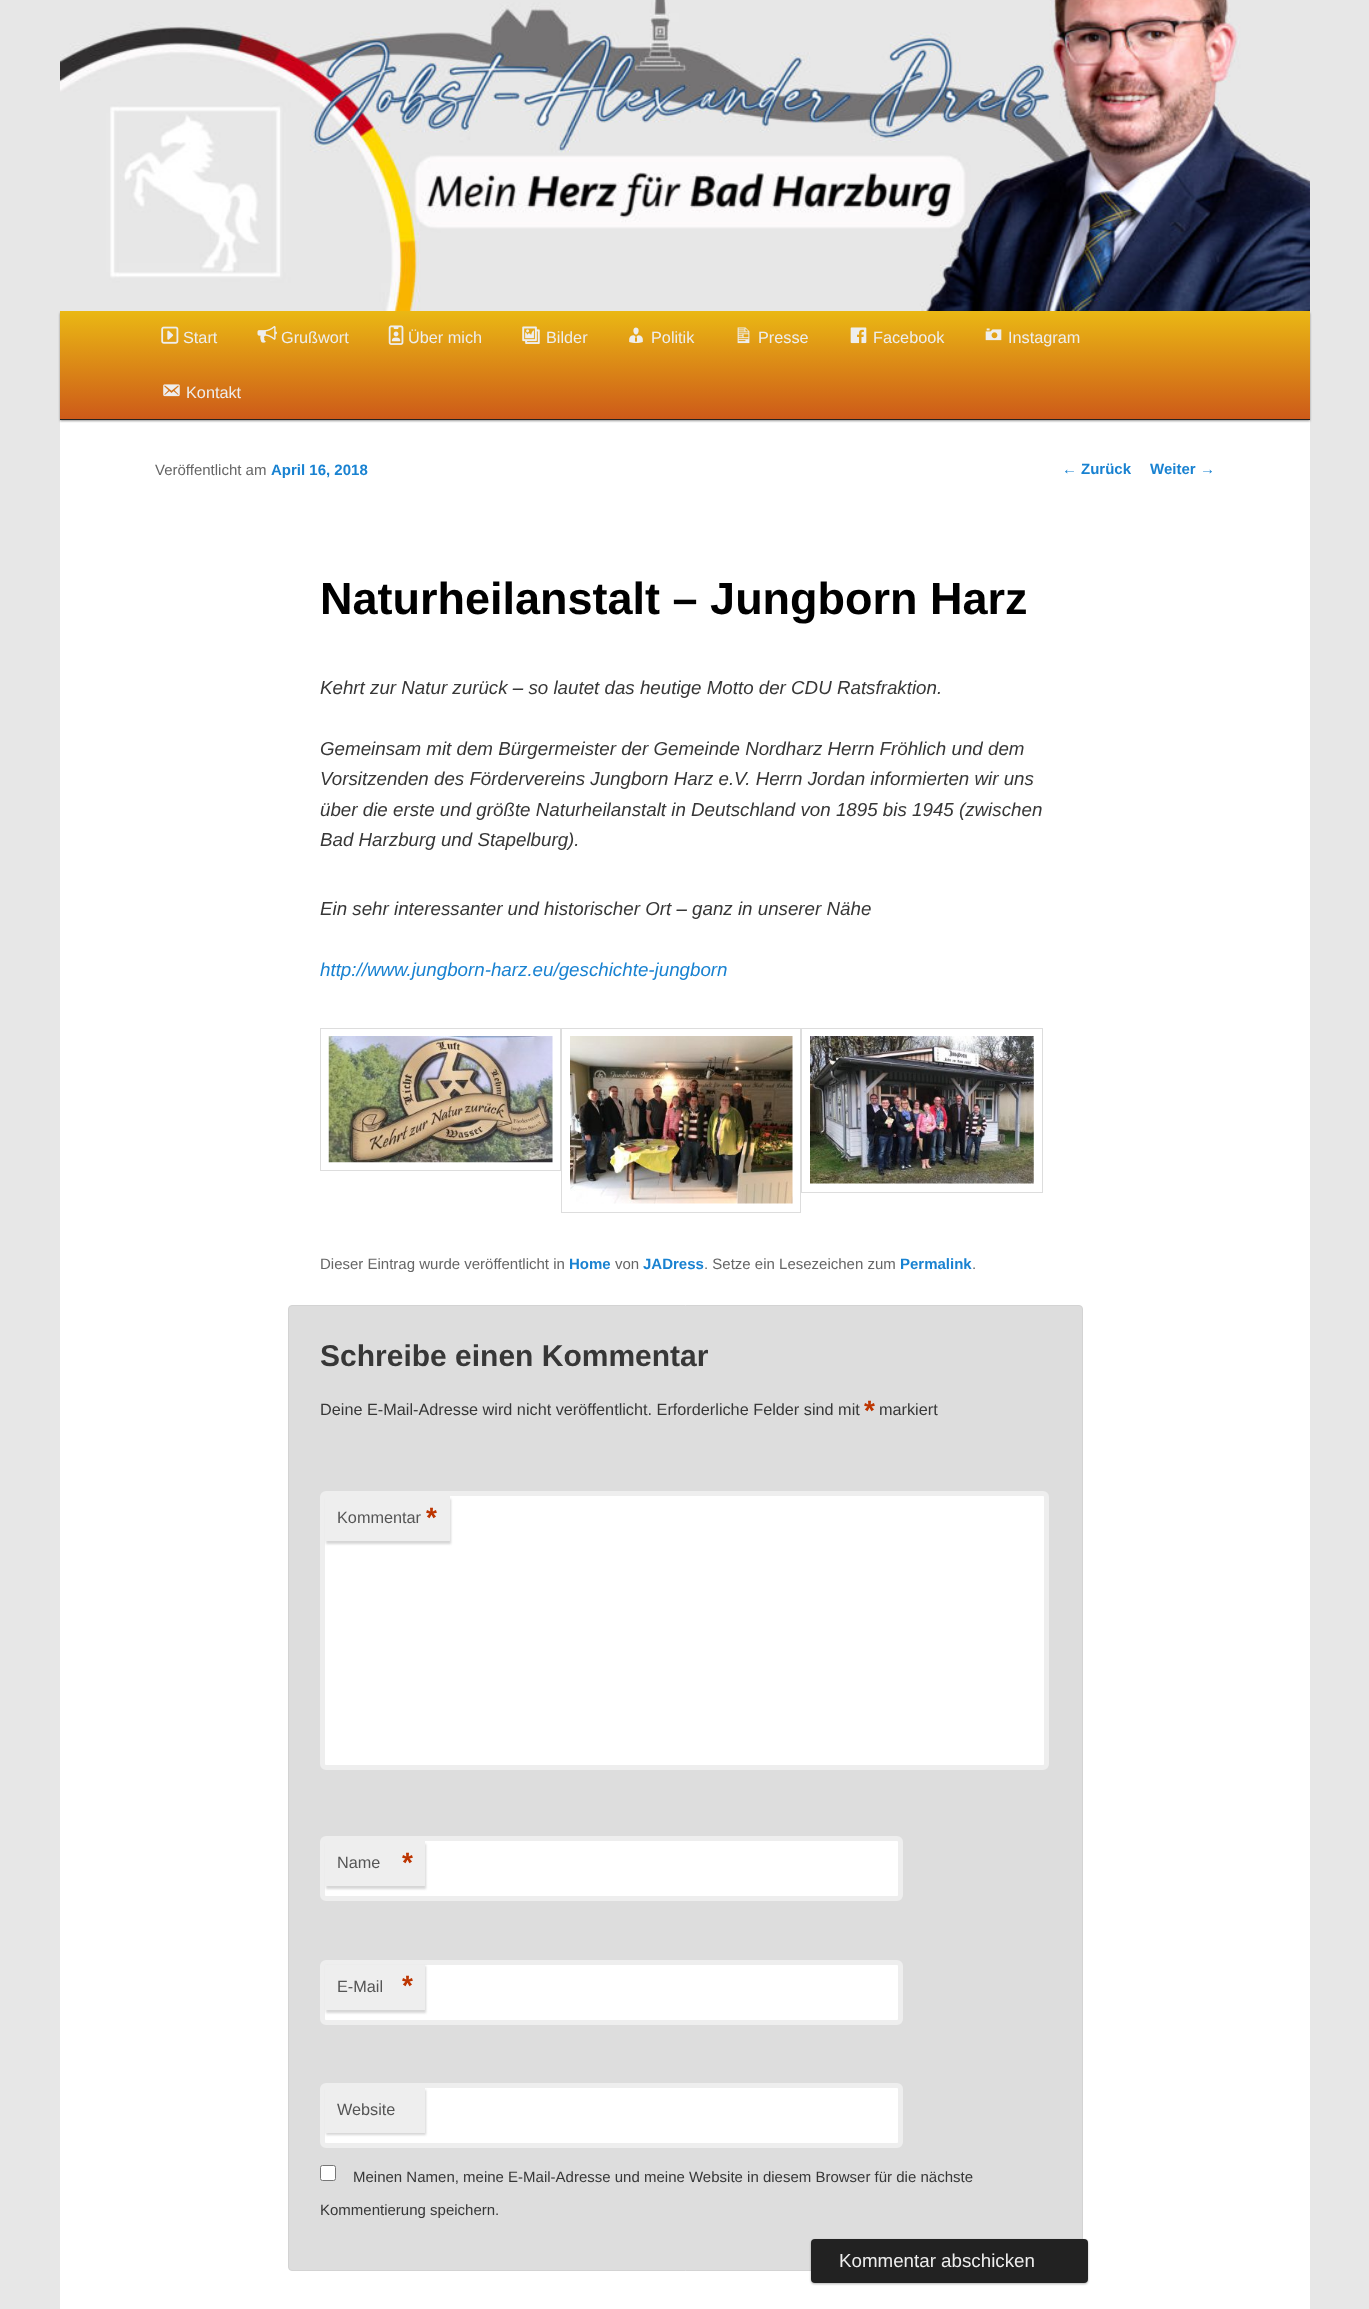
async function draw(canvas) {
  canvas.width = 1369;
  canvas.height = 2309;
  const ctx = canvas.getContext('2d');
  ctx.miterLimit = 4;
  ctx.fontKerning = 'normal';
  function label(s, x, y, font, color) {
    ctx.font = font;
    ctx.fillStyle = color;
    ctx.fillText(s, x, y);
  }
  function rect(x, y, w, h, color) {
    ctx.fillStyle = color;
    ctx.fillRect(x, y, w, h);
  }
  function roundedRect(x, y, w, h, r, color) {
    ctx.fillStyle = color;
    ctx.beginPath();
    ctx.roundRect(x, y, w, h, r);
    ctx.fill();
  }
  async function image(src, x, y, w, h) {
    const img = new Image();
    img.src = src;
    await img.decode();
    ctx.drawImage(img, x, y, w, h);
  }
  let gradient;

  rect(0, 0, 1369, 2309, '#e7e7e7');
  rect(60, 420, 1250, 1889, '#fff');
  ctx.fillStyle = '#00000066';
  ctx.filter = 'blur(1px)';
  ctx.beginPath();
  ctx.rect(60, 313, 1250, 108);
  ctx.fill();
  ctx.filter = 'none';
  await image('assets/img1.png', 60, 0, 1250, 311);
  gradient = ctx.createLinearGradient(685, 311, 685, 419);
  gradient.addColorStop(0, '#eab814');
  gradient.addColorStop(1, '#cd5a19');
  ctx.fillStyle = gradient;
  ctx.fillRect(60, 311, 1250, 108);
  rect(60, 419, 1250, 1, '#222');
  await image('assets/img2.png', 161, 326, 18, 18);
  label('Start', 183, 343, '16.25px Liberation Sans', '#eee');
  await image('assets/img3.png', 257, 326, 20, 17);
  label('Grußwort', 281, 343, '16.25px Liberation Sans', '#eee');
  await image('assets/img4.png', 388, 325, 16, 20);
  label('Über mich', 408, 343, '16.25px Liberation Sans', '#eee');
  await image('assets/img5.png', 522, 326, 18, 18);
  label('Bilder', 546, 343, '16.25px Liberation Sans', '#eee');
  await image('assets/img6.png', 629, 327, 14, 17);
  label('Politik', 651, 343, '16.25px Liberation Sans', '#eee');
  await image('assets/img7.png', 737, 327, 13, 17);
  label('Presse', 758, 343, '16.25px Liberation Sans', '#eee');
  await image('assets/img8.png', 850, 327, 17, 17);
  label('Facebook', 873, 343, '16.25px Liberation Sans', '#eee');
  await image('assets/img9.png', 985, 328, 17, 13);
  label('Instagram', 1008, 343, '16.25px Liberation Sans', '#eee');
  await image('assets/img10.png', 163, 384, 17, 13);
  label('Kontakt', 186, 398, '16.25px Liberation Sans', '#eee');
  label('Veröffentlicht am', 155, 475, '15px Liberation Sans', '#666');
  label('April 16, 2018', 271, 475, 'bold 15px Liberation Sans', '#1982d1');
  label('Naturheilanstalt – Jungborn Harz', 320, 614, 'bold 45px Liberation Sans', '#000');
  label('Kehrt zur Natur zurück – so lautet das heutige Motto der CDU Ratsfraktion.', 320, 694, 'italic 18.75px Liberation Sans', '#373737');
  label('Gemeinsam mit dem Bürgermeister der Gemeinde Nordharz Herrn Fröhlich und dem', 320, 755, 'italic 18.75px Liberation Sans', '#373737');
  label('Vorsitzenden des Fördervereins Jungborn Harz e.V. Herrn Jordan informierten wir uns', 320, 785, 'italic 18.75px Liberation Sans', '#373737');
  label('über die erste und größte Naturheilanstalt in Deutschland von 1895 bis 1945 (zwischen', 320, 816, 'italic 18.75px Liberation Sans', '#373737');
  label('Bad Harzburg und Stapelburg).', 320, 846, 'italic 18.75px Liberation Sans', '#373737');
  label('Ein sehr interessanter und historischer Ort – ganz in unserer Nähe', 320, 915, 'italic 18.75px Liberation Sans', '#373737');
  label('http://www.jungborn-harz.eu/geschichte-jungborn', 320, 976, 'italic 18.75px Liberation Sans', '#1982d1');
  ctx.strokeStyle = '#ddd';
  ctx.strokeRect(320.5, 1028.5, 240, 142);
  await image('assets/img11.png', 328, 1036, 225, 127);
  ctx.strokeRect(561.5, 1028.5, 239, 184);
  await image('assets/img12.png', 570, 1036, 223, 168);
  ctx.strokeRect(801.5, 1028.5, 241, 164);
  await image('assets/img13.png', 810, 1036, 224, 148);
  label('Dieser Eintrag wurde veröffentlicht in', 320, 1269, '15px Liberation Sans', '#666');
  label('Home', 569, 1269, 'bold 15px Liberation Sans', '#1982d1');
  label('von', 615, 1269, '15px Liberation Sans', '#666');
  label('JADress', 643, 1269, 'bold 15px Liberation Sans', '#1982d1');
  label('. Setze ein Lesezeichen zum', 704, 1269, '15px Liberation Sans', '#666');
  label('Permalink', 900, 1269, 'bold 15px Liberation Sans', '#1982d1');
  label('.', 972, 1269, '15px Liberation Sans', '#666');
  label('←', 1062, 474, '15px Liberation Sans', '#1982d1');
  label('Zurück', 1081, 474, 'bold 15px Liberation Sans', '#1982d1');
  label('Weiter', 1150, 474, 'bold 15px Liberation Sans', '#1982d1');
  label('→', 1200, 474, '15px Liberation Sans', '#1982d1');
  ctx.fillStyle = '#ddd';
  ctx.beginPath();
  ctx.roundRect(288.5, 1305.5, 794, 965, 3.5);
  ctx.fill();
  ctx.strokeStyle = '#d3d3d3';
  ctx.stroke();
  label('Schreibe einen Kommentar', 320, 1366, 'bold 30px Liberation Sans', '#373737');
  label('Deine E-Mail-Adresse wird nicht veröffentlicht. Erforderliche Felder sind mit', 320, 1415, '16.25px Liberation Sans', '#373737');
  label('*', 864, 1420, 'bold 28px Liberation Sans', '#bd3500');
  label('markiert', 879, 1415, '16.25px Liberation Sans', '#373737');
  ctx.fillStyle = '#fff';
  ctx.beginPath();
  ctx.roundRect(322.5, 1493.5, 724, 274, 3.5);
  ctx.fill();
  ctx.strokeStyle = '#eee';
  ctx.lineWidth = 5;
  ctx.stroke();
  ctx.fillStyle = '#cccccccc';
  ctx.filter = 'blur(1px)';
  ctx.beginPath();
  ctx.rect(326, 1499, 125, 45);
  ctx.fill();
  ctx.filter = 'none';
  rect(325, 1496, 125, 45, '#eee');
  label('Kommentar', 337, 1523, '16.25px Liberation Sans', '#555');
  label('*', 426, 1527, 'bold 28px Liberation Sans', '#bd3500');
  ctx.fillStyle = '#fff';
  ctx.beginPath();
  ctx.roundRect(322.5, 1838.5, 578, 60, 3.5);
  ctx.fill();
  ctx.stroke();
  ctx.fillStyle = '#cccccccc';
  ctx.filter = 'blur(1px)';
  ctx.beginPath();
  ctx.rect(326, 1844, 100, 45);
  ctx.fill();
  ctx.filter = 'none';
  rect(325, 1841, 100, 45, '#eee');
  label('Name', 337, 1868, '16.25px Liberation Sans', '#555');
  label('*', 402, 1872, 'bold 28px Liberation Sans', '#bd3500');
  ctx.fillStyle = '#fff';
  ctx.beginPath();
  ctx.roundRect(322.5, 1962.5, 578, 60, 3.5);
  ctx.fill();
  ctx.stroke();
  ctx.fillStyle = '#cccccccc';
  ctx.filter = 'blur(1px)';
  ctx.beginPath();
  ctx.rect(326, 1966, 100, 47);
  ctx.fill();
  ctx.filter = 'none';
  rect(325, 1965, 100, 45, '#eee');
  label('E-Mail', 337, 1992, '16.25px Liberation Sans', '#555');
  label('*', 402, 1995, 'bold 28px Liberation Sans', '#bd3500');
  ctx.fillStyle = '#fff';
  ctx.beginPath();
  ctx.roundRect(322.5, 2085.5, 578, 60, 3.5);
  ctx.fill();
  ctx.stroke();
  ctx.fillStyle = '#cccccccc';
  ctx.filter = 'blur(1px)';
  ctx.beginPath();
  ctx.rect(326, 2090, 100, 45);
  ctx.fill();
  ctx.filter = 'none';
  rect(325, 2088, 100, 45, '#eee');
  label('Website', 337, 2115, '16.25px Liberation Sans', '#555');
  ctx.fillStyle = '#fff';
  ctx.beginPath();
  ctx.roundRect(320.5, 2165.5, 15, 15, 2);
  ctx.fill();
  ctx.strokeStyle = '#767676';
  ctx.lineWidth = 1;
  ctx.stroke();
  label('Meinen Namen, meine E-Mail-Adresse und meine Website in diesem Browser für die nächste', 353, 2182, '15px Liberation Sans', '#373737');
  label('Kommentierung speichern.', 320, 2215, '15px Liberation Sans', '#373737');
  ctx.fillStyle = '#0000004d';
  ctx.filter = 'blur(1px)';
  ctx.beginPath();
  ctx.roundRect(811, 2240, 277, 44, 4);
  ctx.fill();
  ctx.filter = 'none';
  roundedRect(811, 2239, 277, 44, 4, '#222');
  label('Kommentar abschicken', 839, 2267, '18.75px Liberation Sans', '#eee');
}

draw(document.querySelector('canvas'));
